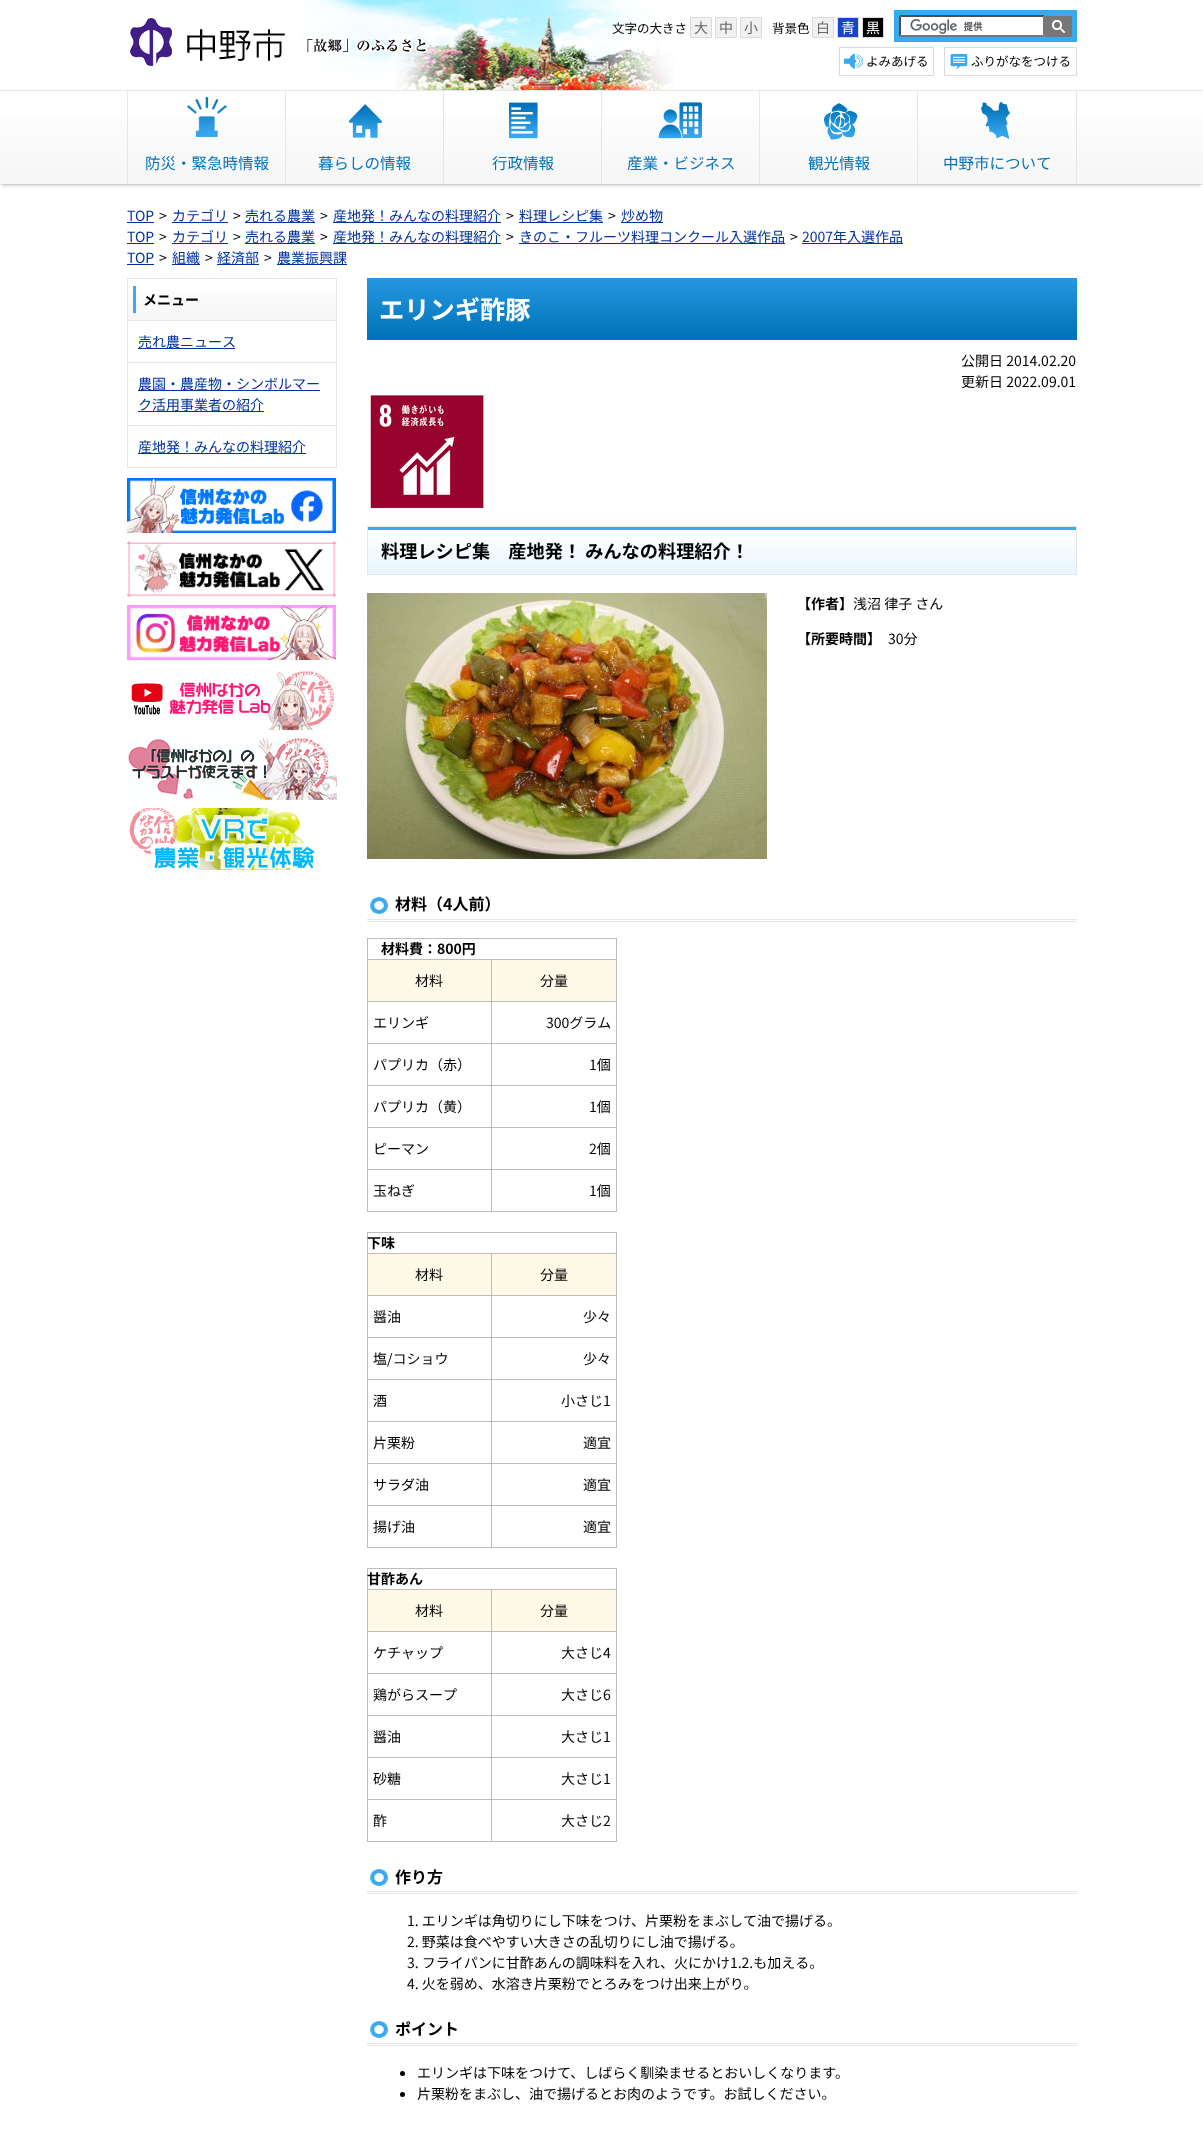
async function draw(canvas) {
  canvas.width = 1203;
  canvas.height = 2133;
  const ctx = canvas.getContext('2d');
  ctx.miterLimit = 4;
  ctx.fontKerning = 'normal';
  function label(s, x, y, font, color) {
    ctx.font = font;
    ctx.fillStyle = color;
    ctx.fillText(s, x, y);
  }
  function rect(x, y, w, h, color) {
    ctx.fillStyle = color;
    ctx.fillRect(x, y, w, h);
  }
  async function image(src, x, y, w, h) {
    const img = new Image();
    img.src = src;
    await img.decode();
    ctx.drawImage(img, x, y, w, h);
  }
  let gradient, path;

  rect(0, 0, 1203, 2133, '#fff');
  await image('assets/img1.png', 300, 0, 374, 90);
  await image('assets/img2.png', 130, 18, 298, 48);
  label('文字の大きさ', 612, 33, '12.5px Noto Sans JP', '#000');
  ctx.fillStyle = '#f1f1f1';
  ctx.beginPath();
  ctx.rect(690.5, 17.5, 21, 20);
  ctx.fill();
  ctx.strokeStyle = '#dbdbdb';
  ctx.stroke();
  label('大', 694, 33, '14px Noto Sans JP', '#666');
  ctx.fillStyle = '#f1f1f1';
  ctx.beginPath();
  ctx.rect(715.5, 17.5, 21, 20);
  ctx.fill();
  ctx.stroke();
  label('中', 719, 33, '14px Noto Sans JP', '#666');
  ctx.fillStyle = '#f1f1f1';
  ctx.beginPath();
  ctx.rect(740.5, 17.5, 21, 20);
  ctx.fill();
  ctx.stroke();
  label('小', 744, 33, '14px Noto Sans JP', '#666');
  label('背景色', 772, 33, '12.5px Noto Sans JP', '#000');
  ctx.fillStyle = '#f1f1f1';
  ctx.beginPath();
  ctx.rect(812.5, 17.5, 21, 20);
  ctx.fill();
  ctx.stroke();
  label('白', 816, 33, '14px Noto Sans JP', '#666');
  ctx.fillStyle = '#1745cc';
  ctx.beginPath();
  ctx.rect(837.5, 17.5, 21, 20);
  ctx.fill();
  ctx.stroke();
  label('青', 841, 33, '14px Noto Sans JP', '#fff');
  ctx.fillStyle = '#000';
  ctx.beginPath();
  ctx.rect(862.5, 17.5, 21, 20);
  ctx.fill();
  ctx.stroke();
  label('黒', 866, 33, '14px Noto Sans JP', '#fff');
  rect(894, 10, 183, 32, '#3aa9ef');
  rect(899, 15, 146, 22, '#fff');
  await image('assets/img3.png', 910, 19, 73, 15);
  ctx.fillStyle = '#4f4f4f';
  path = new Path2D('M899 15H1045L1043 17H901Z');
  ctx.fill(path);
  ctx.fillStyle = '#767676';
  path = new Path2D('M1045 15V37L1043 35V17Z');
  ctx.fill(path);
  path = new Path2D('M1045 37H899L901 35H1043Z');
  ctx.fill(path);
  ctx.fillStyle = '#4f4f4f';
  path = new Path2D('M899 37V15L901 17V35Z');
  ctx.fill(path);
  rect(1045, 16, 27, 21, '#777');
  await image('assets/img4.png', 1052, 20, 13, 13);
  ctx.strokeRect(839.5, 47.5, 94, 28);
  await image('assets/img5.png', 844, 53, 19, 16);
  label('よみあげる', 866, 66, '12.5px Noto Sans JP', '#000');
  ctx.strokeRect(944.5, 47.5, 132, 28);
  await image('assets/img6.png', 950, 54, 18, 16);
  label('ふりがなをつける', 971, 66, '12.5px Noto Sans JP', '#000');
  gradient = ctx.createLinearGradient(602, 91, 602, 184);
  gradient.addColorStop(0, '#fff');
  gradient.addColorStop(1, '#f6f6f6');
  ctx.fillStyle = gradient;
  ctx.fillRect(0, 117, 1203, 67);
  rect(0, 90, 1203, 1, '#e6e6e6');
  rect(0, 184, 1203, 1, '#e6e6e6');
  ctx.save();
  ctx.beginPath();
  ctx.rect(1, 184, 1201, 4);
  ctx.clip();
  ctx.fillStyle = '#0000001a';
  ctx.filter = 'blur(1px)';
  ctx.beginPath();
  ctx.rect(2, 98, 1199, 89);
  ctx.fill();
  ctx.filter = 'none';
  ctx.restore();
  rect(127, 91, 1, 93, '#e6e6e6');
  await image('assets/img7.png', 187, 97, 40, 40);
  rect(285, 91, 1, 93, '#e6e6e6');
  label('防災・緊急時情報', 145, 169, '15.5px Noto Sans JP', '#0374bb');
  await image('assets/img8.png', 349, 104, 33, 34);
  rect(443, 91, 1, 93, '#e6e6e6');
  label('暮らしの情報', 318, 169, '15.5px Noto Sans JP', '#0374bb');
  await image('assets/img9.png', 509, 102, 29, 37);
  rect(601, 91, 1, 93, '#e6e6e6');
  label('行政情報', 492, 169, '15.5px Noto Sans JP', '#0374bb');
  await image('assets/img10.png', 658, 102, 44, 37);
  rect(759, 91, 1, 93, '#e6e6e6');
  label('産業・ビジネス', 627, 169, '15.5px Noto Sans JP', '#0374bb');
  await image('assets/img11.png', 824, 103, 34, 37);
  rect(917, 91, 1, 93, '#e6e6e6');
  label('観光情報', 808, 169, '15.5px Noto Sans JP', '#0374bb');
  await image('assets/img12.png', 981, 102, 29, 37);
  rect(1076, 91, 1, 93, '#e6e6e6');
  label('中野市について', 943, 169, '15.5px Noto Sans JP', '#0374bb');
  label('TOP', 127, 221, '14px Noto Sans JP', '#0032a0');
  rect(127, 222, 27, 1, '#0032a0');
  label('>', 159, 221, '14px Noto Sans JP', '#000');
  label('カテゴリ', 172, 221, '14px Noto Sans JP', '#0032a0');
  rect(172, 222, 56, 1, '#0032a0');
  label('>', 233, 221, '14px Noto Sans JP', '#000');
  rect(245, 222, 70, 1, '#0032a0');
  label('売れる農業', 245, 221, '14px Noto Sans JP', '#0032a0');
  label('>', 320, 221, '14px Noto Sans JP', '#000');
  rect(333, 222, 168, 1, '#0032a0');
  label('産地発！みんなの料理紹介', 333, 221, '14px Noto Sans JP', '#0032a0');
  label('>', 506, 221, '14px Noto Sans JP', '#000');
  rect(519, 222, 84, 1, '#0032a0');
  label('料理レシピ集', 519, 221, '14px Noto Sans JP', '#0032a0');
  label('>', 608, 221, '14px Noto Sans JP', '#000');
  rect(621, 222, 42, 1, '#0032a0');
  label('炒め物', 621, 221, '14px Noto Sans JP', '#0032a0');
  label('TOP', 127, 242, '14px Noto Sans JP', '#0032a0');
  rect(127, 243, 27, 1, '#0032a0');
  label('>', 159, 242, '14px Noto Sans JP', '#000');
  label('カテゴリ', 172, 242, '14px Noto Sans JP', '#0032a0');
  rect(172, 243, 56, 1, '#0032a0');
  label('>', 233, 242, '14px Noto Sans JP', '#000');
  rect(245, 243, 70, 1, '#0032a0');
  label('売れる農業', 245, 242, '14px Noto Sans JP', '#0032a0');
  label('>', 320, 242, '14px Noto Sans JP', '#000');
  rect(333, 243, 168, 1, '#0032a0');
  label('産地発！みんなの料理紹介', 333, 242, '14px Noto Sans JP', '#0032a0');
  label('>', 506, 242, '14px Noto Sans JP', '#000');
  rect(519, 243, 266, 1, '#0032a0');
  label('きのこ・フルーツ料理コンクール入選作品', 519, 242, '14px Noto Sans JP', '#0032a0');
  label('>', 790, 242, '14px Noto Sans JP', '#000');
  rect(802, 243, 101, 1, '#0032a0');
  label('2007年入選作品', 802, 242, '14px Noto Sans JP', '#0032a0');
  label('TOP', 127, 263, '14px Noto Sans JP', '#0032a0');
  rect(127, 264, 27, 1, '#0032a0');
  label('>', 159, 263, '14px Noto Sans JP', '#000');
  rect(172, 264, 28, 1, '#0032a0');
  label('組織', 172, 263, '14px Noto Sans JP', '#0032a0');
  label('>', 205, 263, '14px Noto Sans JP', '#000');
  rect(217, 264, 42, 1, '#0032a0');
  label('経済部', 217, 263, '14px Noto Sans JP', '#0032a0');
  label('>', 264, 263, '14px Noto Sans JP', '#000');
  rect(277, 264, 70, 1, '#0032a0');
  label('農業振興課', 277, 263, '14px Noto Sans JP', '#0032a0');
  gradient = ctx.createLinearGradient(232, 279, 232, 320);
  gradient.addColorStop(0, '#fff');
  gradient.addColorStop(1, '#f6f6f6');
  ctx.fillStyle = gradient;
  ctx.fillRect(128, 290, 208, 30);
  ctx.strokeStyle = '#e6e6e6';
  ctx.strokeRect(127.5, 278.5, 209, 42);
  rect(133, 286, 3, 27, '#3aa9ef');
  label('メニュー', 143, 305, 'bold 14px Noto Sans JP', '#000');
  rect(336, 321, 1, 147, '#e6e6e6');
  rect(127, 467, 210, 1, '#e6e6e6');
  rect(127, 321, 1, 147, '#e6e6e6');
  rect(128, 362, 208, 1, '#e6e6e6');
  rect(138, 348, 97, 1, '#0032a0');
  label('売れ農ニュース', 138, 347, '14px Noto Sans JP', '#0032a0');
  rect(128, 425, 208, 1, '#e6e6e6');
  rect(138, 390, 182, 1, '#0032a0');
  label('農園・農産物・シンボルマー', 138, 389, '14px Noto Sans JP', '#0032a0');
  rect(138, 411, 126, 1, '#0032a0');
  label('ク活用事業者の紹介', 138, 410, '14px Noto Sans JP', '#0032a0');
  rect(138, 453, 168, 1, '#0032a0');
  label('産地発！みんなの料理紹介', 138, 452, '14px Noto Sans JP', '#0032a0');
  await image('assets/img13.png', 127, 478, 209, 55);
  await image('assets/img14.png', 127, 541, 209, 56);
  await image('assets/img15.png', 127, 605, 209, 55);
  await image('assets/img16.png', 128, 670, 207, 60);
  await image('assets/img17.png', 128, 738, 209, 62);
  await image('assets/img18.png', 129, 808, 188, 62);
  gradient = ctx.createLinearGradient(722, 278, 722, 340);
  gradient.addColorStop(0, '#2498e1');
  gradient.addColorStop(1, '#0071b8');
  ctx.fillStyle = gradient;
  ctx.fillRect(367, 278, 710, 62);
  label('エリンギ酢豚', 379, 319, 'bold 25.25px Noto Sans JP', '#fff');
  label('公開日 2014.02.20', 961, 366, '14px Noto Sans JP', '#000');
  label('更新日 2022.09.01', 961, 387, '14px Noto Sans JP', '#000');
  await image('assets/img19.png', 370, 395, 114, 114);
  rect(368, 563, 708, 11, '#eaf7ff');
  await image('assets/img20.png', 368, 527, 708, 36);
  ctx.strokeRect(367.5, 526.5, 709, 48);
  label('料理レシピ集　産地発！ みんなの料理紹介！', 381, 558, 'bold 18.2px Noto Sans JP', '#000');
  await image('assets/img21.png', 367, 593, 400, 266);
  label('【作者】', 797, 609, 'bold 14px Noto Sans JP', '#000');
  label('浅沼 律子 さん', 853, 609, '14px Noto Sans JP', '#000');
  label('【所要時間】', 797, 644, 'bold 14px Noto Sans JP', '#000');
  label('30分', 888, 644, '14px Noto Sans JP', '#000');
  await image('assets/img22.png', 370, 897, 18, 17);
  rect(367, 919, 710, 1, '#e6e6e6');
  rect(367, 921, 710, 1, '#e6e6e6');
  label('材料（4人前）', 395, 910, 'bold 16px Noto Sans JP', '#000');
  rect(367, 938, 250, 1, '#bcbcbc');
  rect(616, 938, 1, 274, '#bcbcbc');
  rect(367, 1211, 250, 1, '#bcbcbc');
  rect(367, 938, 1, 274, '#bcbcbc');
  label('材料費：800円', 381, 954, 'bold 14px Noto Sans JP', '#000');
  rect(368, 960, 123, 41, '#fff9e7');
  rect(491, 959, 126, 1, '#bcbcbc');
  rect(491, 1001, 126, 1, '#bcbcbc');
  rect(491, 1043, 126, 1, '#bcbcbc');
  rect(491, 1085, 126, 1, '#bcbcbc');
  rect(491, 1127, 126, 1, '#bcbcbc');
  rect(491, 1169, 126, 1, '#bcbcbc');
  rect(491, 1169, 1, 43, '#bcbcbc');
  rect(367, 1169, 125, 1, '#bcbcbc');
  rect(491, 1127, 1, 43, '#bcbcbc');
  rect(367, 1127, 125, 1, '#bcbcbc');
  rect(491, 1085, 1, 43, '#bcbcbc');
  rect(367, 1085, 125, 1, '#bcbcbc');
  rect(491, 1043, 1, 43, '#bcbcbc');
  rect(367, 1043, 125, 1, '#bcbcbc');
  rect(491, 1001, 1, 43, '#bcbcbc');
  rect(367, 1001, 125, 1, '#bcbcbc');
  rect(491, 959, 1, 43, '#bcbcbc');
  rect(367, 959, 125, 1, '#bcbcbc');
  label('材料', 415, 986, '14px Noto Sans JP', '#000');
  rect(492, 960, 124, 41, '#fff9e7');
  label('分量', 540, 986, '14px Noto Sans JP', '#000');
  label('エリンギ', 373, 1028, '14px Noto Sans JP', '#000');
  label('300グラム', 546, 1028, '14px Noto Sans JP', '#000');
  label('パプリカ（赤）', 373, 1070, '14px Noto Sans JP', '#000');
  label('1個', 589, 1070, '14px Noto Sans JP', '#000');
  label('パプリカ（黄）', 373, 1112, '14px Noto Sans JP', '#000');
  label('1個', 589, 1112, '14px Noto Sans JP', '#000');
  label('ピーマン', 373, 1154, '14px Noto Sans JP', '#000');
  label('2個', 589, 1154, '14px Noto Sans JP', '#000');
  label('玉ねぎ', 373, 1196, '14px Noto Sans JP', '#000');
  label('1個', 589, 1196, '14px Noto Sans JP', '#000');
  rect(367, 1232, 250, 1, '#bcbcbc');
  rect(616, 1232, 1, 316, '#bcbcbc');
  rect(367, 1547, 250, 1, '#bcbcbc');
  rect(367, 1232, 1, 316, '#bcbcbc');
  label('下味', 367, 1248, 'bold 14px Noto Sans JP', '#000');
  rect(368, 1254, 123, 41, '#fff9e7');
  rect(491, 1253, 126, 1, '#bcbcbc');
  rect(491, 1295, 126, 1, '#bcbcbc');
  rect(491, 1337, 126, 1, '#bcbcbc');
  rect(491, 1379, 126, 1, '#bcbcbc');
  rect(491, 1421, 126, 1, '#bcbcbc');
  rect(491, 1463, 126, 1, '#bcbcbc');
  rect(491, 1505, 126, 1, '#bcbcbc');
  rect(491, 1505, 1, 43, '#bcbcbc');
  rect(367, 1505, 125, 1, '#bcbcbc');
  rect(491, 1463, 1, 43, '#bcbcbc');
  rect(367, 1463, 125, 1, '#bcbcbc');
  rect(491, 1421, 1, 43, '#bcbcbc');
  rect(367, 1421, 125, 1, '#bcbcbc');
  rect(491, 1379, 1, 43, '#bcbcbc');
  rect(367, 1379, 125, 1, '#bcbcbc');
  rect(491, 1337, 1, 43, '#bcbcbc');
  rect(367, 1337, 125, 1, '#bcbcbc');
  rect(491, 1295, 1, 43, '#bcbcbc');
  rect(367, 1295, 125, 1, '#bcbcbc');
  rect(491, 1253, 1, 43, '#bcbcbc');
  rect(367, 1253, 125, 1, '#bcbcbc');
  label('材料', 415, 1280, '14px Noto Sans JP', '#000');
  rect(492, 1254, 124, 41, '#fff9e7');
  label('分量', 540, 1280, '14px Noto Sans JP', '#000');
  label('醤油', 373, 1322, '14px Noto Sans JP', '#000');
  label('少々', 583, 1322, '14px Noto Sans JP', '#000');
  label('塩/コショウ', 373, 1364, '14px Noto Sans JP', '#000');
  label('少々', 583, 1364, '14px Noto Sans JP', '#000');
  label('酒', 373, 1406, '14px Noto Sans JP', '#000');
  label('小さじ1', 561, 1406, '14px Noto Sans JP', '#000');
  label('片栗粉', 373, 1448, '14px Noto Sans JP', '#000');
  label('適宜', 583, 1448, '14px Noto Sans JP', '#000');
  label('サラダ油', 373, 1490, '14px Noto Sans JP', '#000');
  label('適宜', 583, 1490, '14px Noto Sans JP', '#000');
  label('揚げ油', 373, 1532, '14px Noto Sans JP', '#000');
  label('適宜', 583, 1532, '14px Noto Sans JP', '#000');
  rect(367, 1568, 250, 1, '#bcbcbc');
  rect(616, 1568, 1, 274, '#bcbcbc');
  rect(367, 1841, 250, 1, '#bcbcbc');
  rect(367, 1568, 1, 274, '#bcbcbc');
  label('甘酢あん', 367, 1584, 'bold 14px Noto Sans JP', '#000');
  rect(368, 1590, 123, 41, '#fff9e7');
  rect(491, 1589, 126, 1, '#bcbcbc');
  rect(491, 1631, 126, 1, '#bcbcbc');
  rect(491, 1673, 126, 1, '#bcbcbc');
  rect(491, 1715, 126, 1, '#bcbcbc');
  rect(491, 1757, 126, 1, '#bcbcbc');
  rect(491, 1799, 126, 1, '#bcbcbc');
  rect(491, 1799, 1, 43, '#bcbcbc');
  rect(367, 1799, 125, 1, '#bcbcbc');
  rect(491, 1757, 1, 43, '#bcbcbc');
  rect(367, 1757, 125, 1, '#bcbcbc');
  rect(491, 1715, 1, 43, '#bcbcbc');
  rect(367, 1715, 125, 1, '#bcbcbc');
  rect(491, 1673, 1, 43, '#bcbcbc');
  rect(367, 1673, 125, 1, '#bcbcbc');
  rect(491, 1631, 1, 43, '#bcbcbc');
  rect(367, 1631, 125, 1, '#bcbcbc');
  rect(491, 1589, 1, 43, '#bcbcbc');
  rect(367, 1589, 125, 1, '#bcbcbc');
  label('材料', 415, 1616, '14px Noto Sans JP', '#000');
  rect(492, 1590, 124, 41, '#fff9e7');
  label('分量', 540, 1616, '14px Noto Sans JP', '#000');
  label('ケチャップ', 373, 1658, '14px Noto Sans JP', '#000');
  label('大さじ4', 561, 1658, '14px Noto Sans JP', '#000');
  label('鶏がらスープ', 373, 1700, '14px Noto Sans JP', '#000');
  label('大さじ6', 561, 1700, '14px Noto Sans JP', '#000');
  label('醤油', 373, 1742, '14px Noto Sans JP', '#000');
  label('大さじ1', 561, 1742, '14px Noto Sans JP', '#000');
  label('砂糖', 373, 1784, '14px Noto Sans JP', '#000');
  label('大さじ1', 561, 1784, '14px Noto Sans JP', '#000');
  label('酢', 373, 1826, '14px Noto Sans JP', '#000');
  label('大さじ2', 561, 1826, '14px Noto Sans JP', '#000');
  await image('assets/img22.png', 370, 1869, 18, 17);
  rect(367, 1891, 710, 1, '#e6e6e6');
  rect(367, 1893, 710, 1, '#e6e6e6');
  label('作り方', 395, 1883, 'bold 16px Noto Sans JP', '#000');
  label('1. エリンギは角切りにし下味をつけ、片栗粉をまぶして油で揚げる。', 407, 1926, '14px Noto Sans JP', '#000');
  label('2. 野菜は食べやすい大きさの乱切りにし油で揚げる。', 407, 1947, '14px Noto Sans JP', '#000');
  label('3. フライパンに甘酢あんの調味料を入れ、火にかけ1.2.も加える。', 407, 1968, '14px Noto Sans JP', '#000');
  label('4. 火を弱め、水溶き片栗粉でとろみをつけ出来上がり。', 407, 1989, '14px Noto Sans JP', '#000');
  await image('assets/img22.png', 370, 2021, 18, 17);
  rect(367, 2043, 710, 1, '#e6e6e6');
  rect(367, 2045, 710, 1, '#e6e6e6');
  label('ポイント', 395, 2035, 'bold 16px Noto Sans JP', '#000');
  ctx.beginPath();
  ctx.arc(402.5, 2073.5, 2.5, 0, 2 * Math.PI);
  ctx.fill();
  label('エリンギは下味をつけて、しばらく馴染ませるとおいしくなります。', 417, 2078, '14px Noto Sans JP', '#000');
  ctx.beginPath();
  ctx.arc(402.5, 2094.5, 2.5, 0, 2 * Math.PI);
  ctx.fill();
  label('片栗粉をまぶし、油で揚げるとお肉のようです。お試しください。', 417, 2099, '14px Noto Sans JP', '#000');
}

draw(document.querySelector('canvas'));
